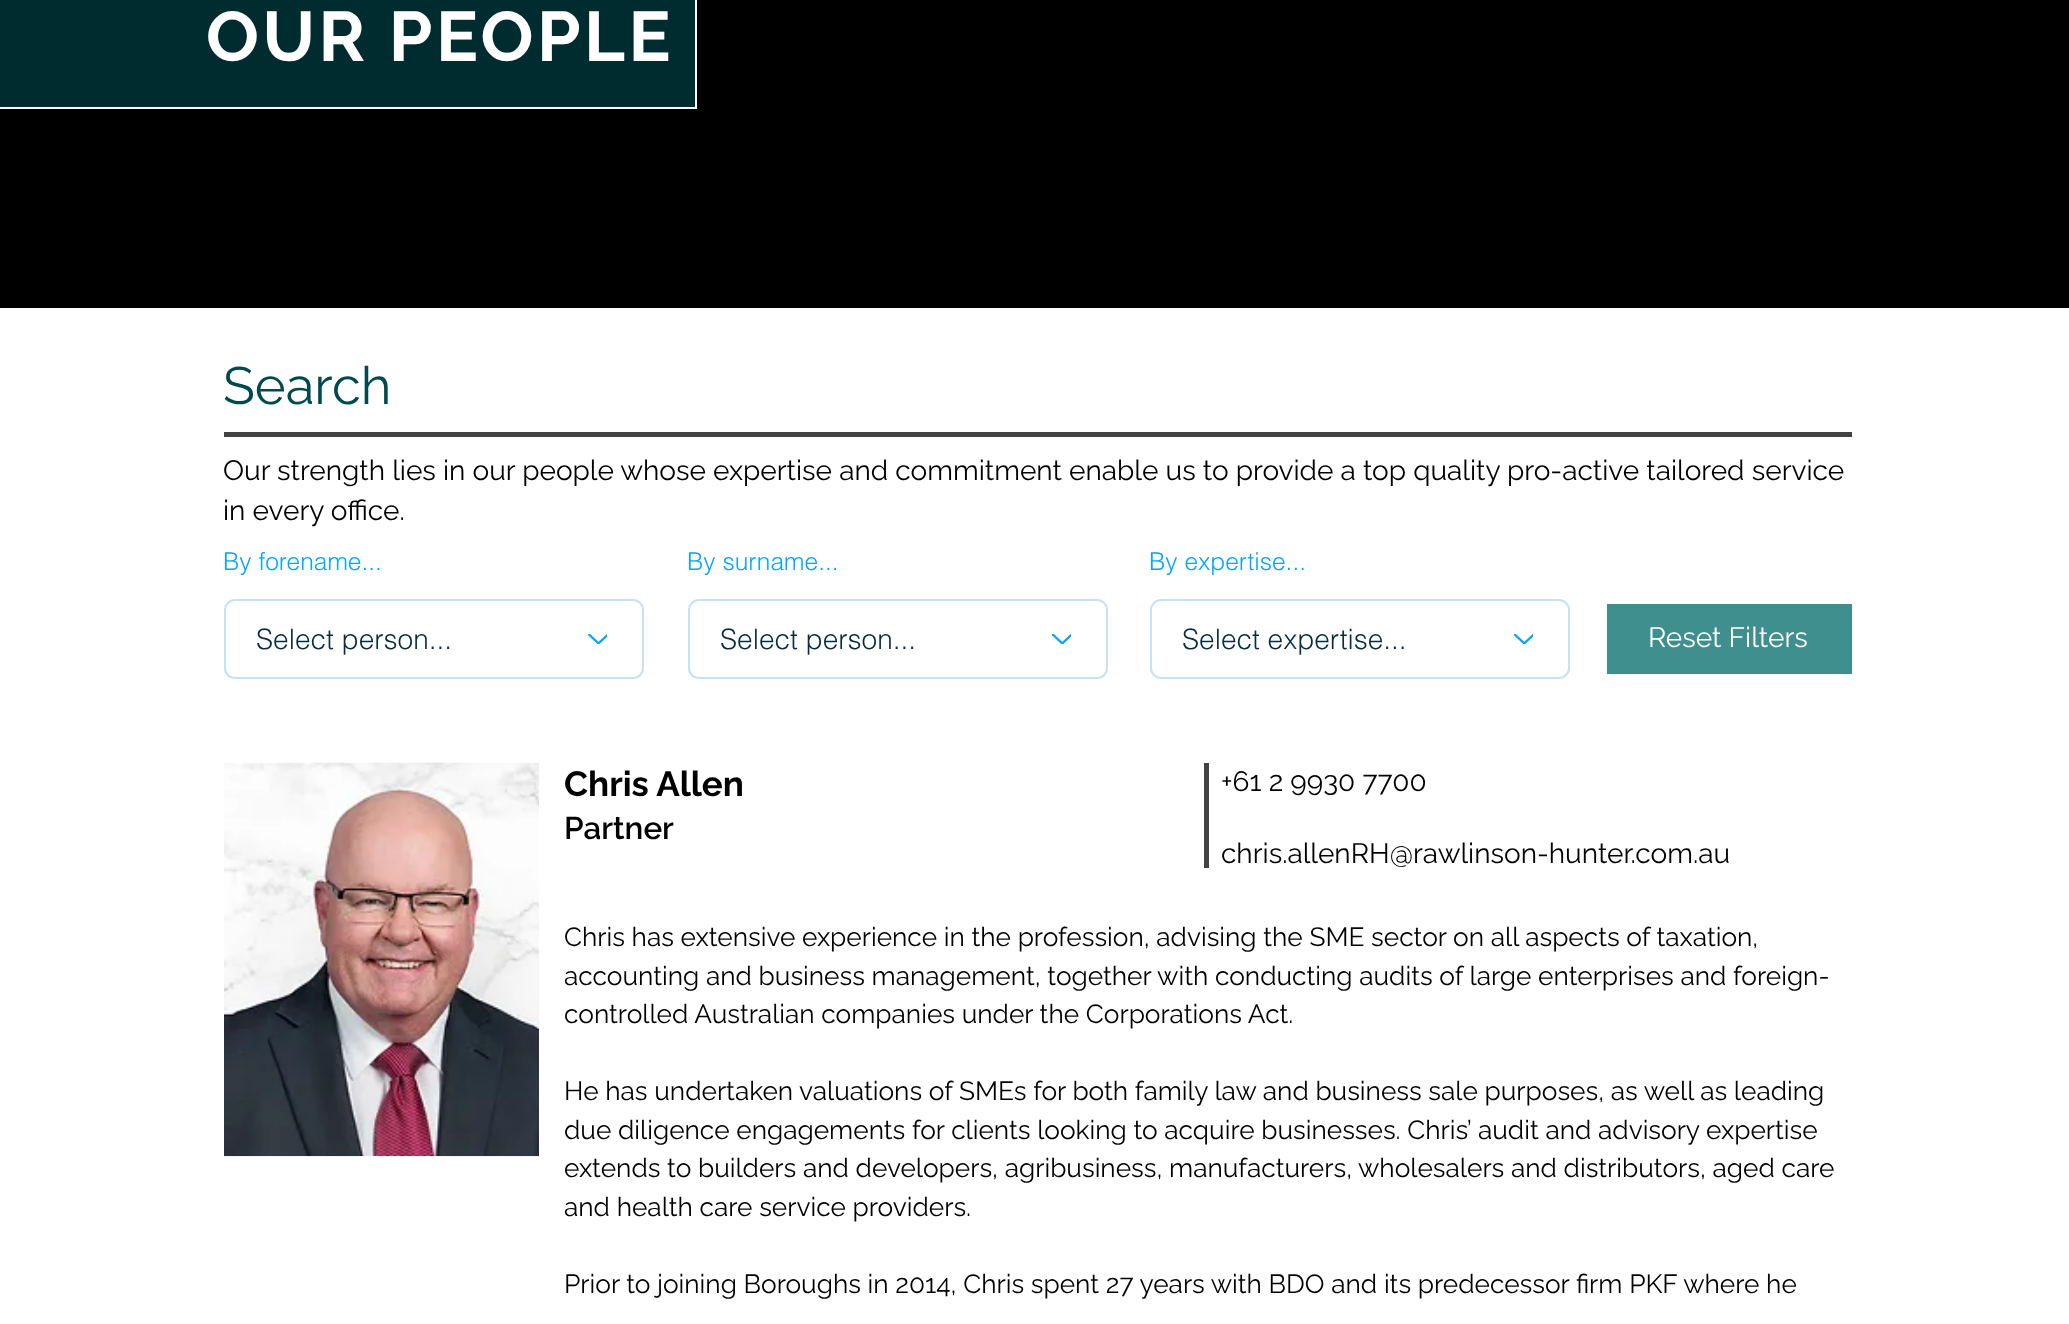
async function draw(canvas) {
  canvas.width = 2069;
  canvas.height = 1324;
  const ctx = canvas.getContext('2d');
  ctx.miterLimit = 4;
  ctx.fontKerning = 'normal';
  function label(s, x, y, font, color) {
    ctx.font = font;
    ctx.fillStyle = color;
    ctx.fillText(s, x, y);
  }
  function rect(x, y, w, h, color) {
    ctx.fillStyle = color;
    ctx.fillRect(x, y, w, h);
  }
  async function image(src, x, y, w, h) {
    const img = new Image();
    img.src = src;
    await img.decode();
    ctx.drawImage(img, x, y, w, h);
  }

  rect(0, 0, 2069, 1324, '#fff');
  rect(0, 0, 2069, 308, '#000');
  ctx.fillStyle = '#002c2f';
  ctx.beginPath();
  ctx.rect(-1, -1, 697, 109);
  ctx.fill();
  ctx.strokeStyle = '#fff';
  ctx.lineWidth = 2;
  ctx.stroke();
  ctx.letterSpacing = '3.5px';
  label('OUR PEOPLE', 206, 61, 'bold 70px Raleway', '#fff');
  ctx.letterSpacing = '0px';
  label('Search', 223, 404, '52.5px Raleway', '#00494f');
  rect(224, 432, 1628, 5, '#424242');
  label('Our strength lies in our people whose expertise and commitment enable us to provide a top quality pro-active tailored service', 223, 480, '28px Raleway', '#000');
  label('in every office.', 223, 520, '28px Raleway', '#000');
  label('By forename...', 223, 570, '300 24.5px helvetica', '#00a6ff');
  ctx.beginPath();
  ctx.roundRect(225, 600, 418, 78, 10);
  ctx.strokeStyle = '#c6e2f7';
  ctx.stroke();
  label('Select person...', 256, 649, '300 28px helvetica', '#072d3e');
  await image('assets/img1.png', 588, 634, 19, 10);
  label('By surname...', 687, 570, '300 24.5px helvetica', '#00a6ff');
  ctx.beginPath();
  ctx.roundRect(689, 600, 418, 78, 10);
  ctx.stroke();
  label('Select person...', 720, 649, '300 28px helvetica', '#072d3e');
  await image('assets/img2.png', 1052, 634, 19, 10);
  label('By expertise...', 1149, 570, '300 24.5px helvetica', '#00a6ff');
  ctx.beginPath();
  ctx.roundRect(1151, 600, 418, 78, 10);
  ctx.stroke();
  label('Select expertise...', 1182, 649, '300 28px helvetica', '#072d3e');
  await image('assets/img2.png', 1514, 634, 19, 10);
  rect(1607, 604, 245, 70, '#408f8f');
  label('Reset Filters', 1648, 647, '28px Raleway', '#fff');
  await image('assets/img3.png', 224, 762, 315, 395);
  label('Chris Allen', 564, 796, 'bold 35px Raleway', '#000');
  rect(1204, 763, 5, 105, '#424242');
  label('+61 2 9930 7700', 1221, 791, '28px Raleway', '#000');
  label('Partner', 564, 839, '600 31.5px Raleway', '#000');
  label('chris.allenRH@rawlinson-hunter.com.au', 1221, 863, '28px Raleway', '#000');
  label('Chris has extensive experience in the profession, advising the SME sector on all aspects of taxation,', 564, 946, '26.25px Raleway', '#000');
  label('accounting and business management, together with conducting audits of large enterprises and foreign-', 564, 985, '26.25px Raleway', '#000');
  label('controlled Australian companies under the Corporations Act.', 564, 1023, '26.25px Raleway', '#000');
  label('He has undertaken valuations of SMEs for both family law and business sale purposes, as well as leading', 564, 1100, '26.25px Raleway', '#000');
  label('due diligence engagements for clients looking to acquire businesses. Chris’ audit and advisory expertise', 564, 1139, '26.25px Raleway', '#000');
  label('extends to builders and developers, agribusiness, manufacturers, wholesalers and distributors, aged care', 564, 1177, '26.25px Raleway', '#000');
  label('and health care service providers.', 564, 1216, '26.25px Raleway', '#000');
  label('Prior to joining Boroughs in 2014, Chris spent 27 years with BDO and its predecessor firm PKF where he', 564, 1293, '26.25px Raleway', '#000');
}

draw(document.querySelector('canvas'));
